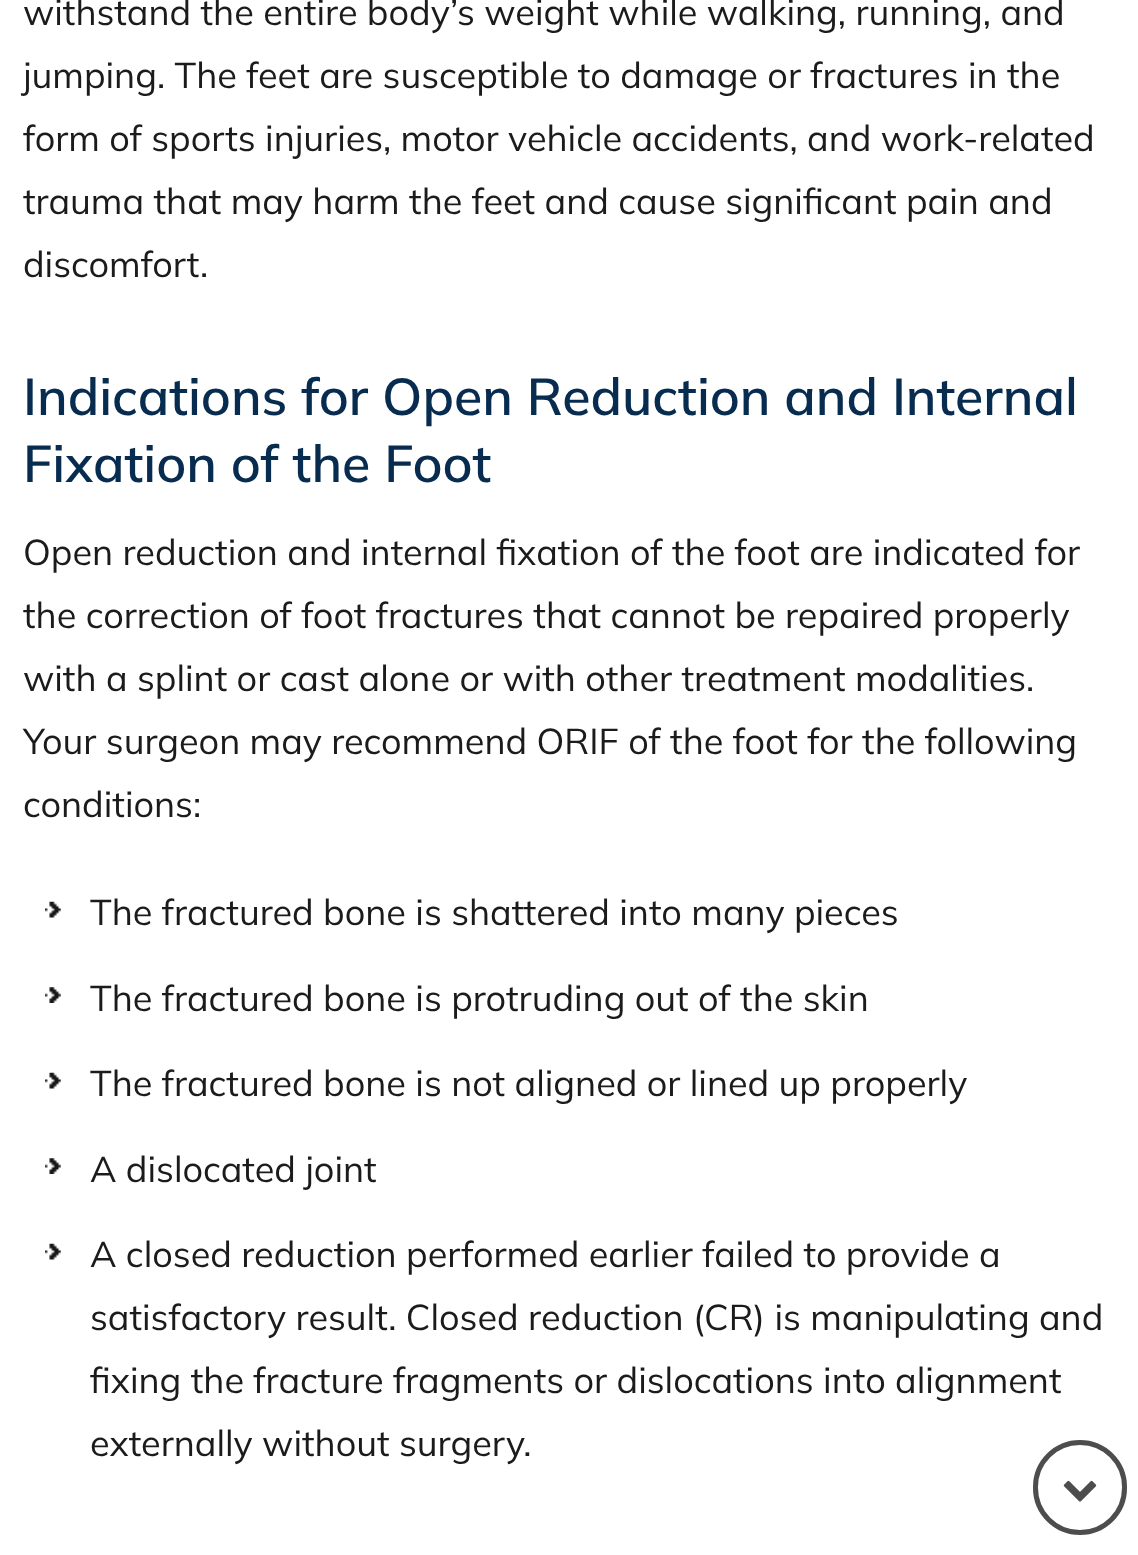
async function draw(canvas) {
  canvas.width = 1138;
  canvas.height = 1555;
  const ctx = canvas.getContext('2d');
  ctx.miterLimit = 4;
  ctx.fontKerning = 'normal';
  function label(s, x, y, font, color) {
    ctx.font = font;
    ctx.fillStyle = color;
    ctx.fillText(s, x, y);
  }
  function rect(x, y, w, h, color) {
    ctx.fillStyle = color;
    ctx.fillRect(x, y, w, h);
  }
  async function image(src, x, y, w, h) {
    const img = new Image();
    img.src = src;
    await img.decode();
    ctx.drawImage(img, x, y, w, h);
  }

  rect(0, 0, 1138, 1555, '#fff');
  label('withstand the entire body’s weight while walking, running, and', 23, 25, '36px Mulish', '#1b1b1b');
  label('jumping. The feet are susceptible to damage or fractures in the', 23, 88, '36px Mulish', '#1b1b1b');
  label('form of sports injuries, motor vehicle accidents, and work-related', 23, 151, '36px Mulish', '#1b1b1b');
  label('trauma that may harm the feet and cause significant pain and', 23, 214, '36px Mulish', '#1b1b1b');
  label('discomfort.', 23, 277, '36px Mulish', '#1b1b1b');
  label('Indications for Open Reduction and Internal', 23, 415, '600 51.75px Mulish', '#072c50');
  label('Fixation of the Foot', 23, 482, '600 51.75px Mulish', '#072c50');
  label('Open reduction and internal fixation of the foot are indicated for', 23, 565, '36px Mulish', '#1b1b1b');
  label('the correction of foot fractures that cannot be repaired properly', 23, 628, '36px Mulish', '#1b1b1b');
  label('with a splint or cast alone or with other treatment modalities.', 23, 691, '36px Mulish', '#1b1b1b');
  label('Your surgeon may recommend ORIF of the foot for the following', 23, 754, '36px Mulish', '#1b1b1b');
  label('conditions:', 23, 817, '36px Mulish', '#1b1b1b');
  await image('assets/img1.png', 45, 901, 16, 17);
  label('The fractured bone is shattered into many pieces', 90, 925, '36px Mulish', '#1b1b1b');
  await image('assets/img2.png', 45, 987, 16, 16);
  label('The fractured bone is protruding out of the skin', 90, 1011, '36px Mulish', '#1b1b1b');
  await image('assets/img1.png', 45, 1072, 16, 17);
  label('The fractured bone is not aligned or lined up properly', 90, 1096, '36px Mulish', '#1b1b1b');
  await image('assets/img2.png', 45, 1158, 16, 16);
  label('A dislocated joint', 90, 1182, '36px Mulish', '#1b1b1b');
  await image('assets/img1.png', 45, 1243, 16, 17);
  label('A closed reduction performed earlier failed to provide a', 90, 1267, '36px Mulish', '#1b1b1b');
  label('satisfactory result. Closed reduction (CR) is manipulating and', 90, 1330, '36px Mulish', '#1b1b1b');
  label('fixing the fracture fragments or dislocations into alignment', 90, 1393, '36px Mulish', '#1b1b1b');
  label('externally without surgery.', 90, 1456, '36px Mulish', '#1b1b1b');
  ctx.beginPath();
  ctx.roundRect(1035.5, 1442.5, 89, 90, 44.5);
  ctx.strokeStyle = '#4d4d4d';
  ctx.lineWidth = 5;
  ctx.stroke();
  await image('assets/img3.png', 1063, 1480, 34, 22);
}

draw(document.querySelector('canvas'));
